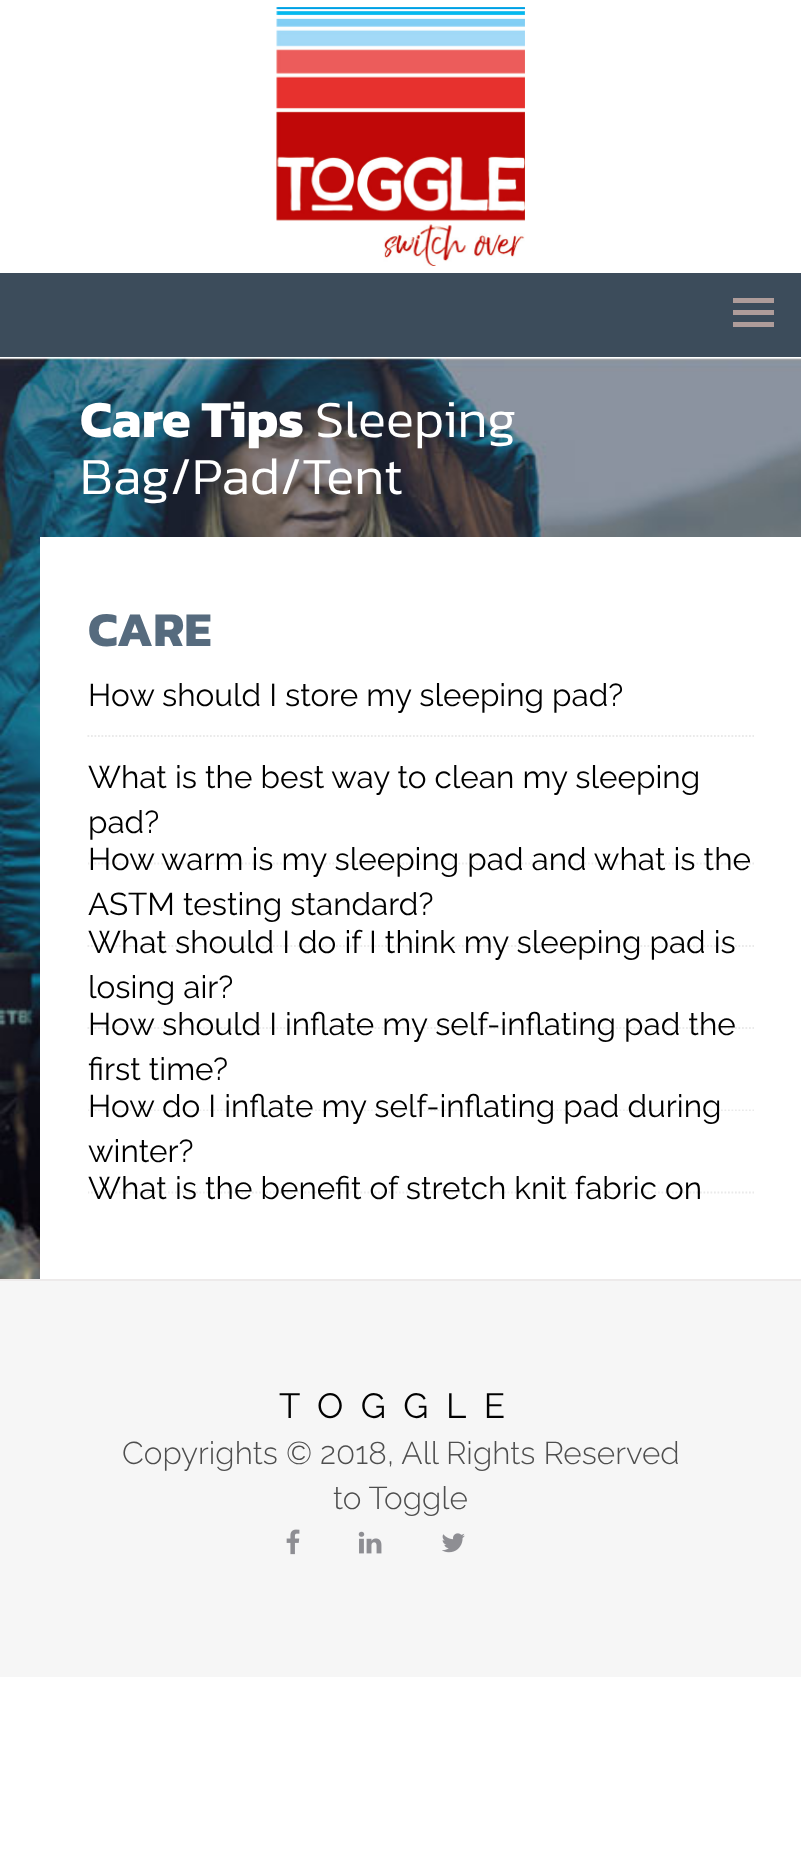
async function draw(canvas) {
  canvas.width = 801;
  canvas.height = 1855;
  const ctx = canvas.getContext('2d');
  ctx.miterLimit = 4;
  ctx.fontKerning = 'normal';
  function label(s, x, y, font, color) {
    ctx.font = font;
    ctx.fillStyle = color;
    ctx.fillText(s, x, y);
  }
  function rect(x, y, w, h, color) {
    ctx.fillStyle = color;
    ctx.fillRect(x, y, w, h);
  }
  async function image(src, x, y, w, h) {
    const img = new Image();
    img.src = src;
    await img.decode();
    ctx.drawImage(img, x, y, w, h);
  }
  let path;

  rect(0, 0, 801, 1855, '#fff');
  await image('assets/img1.png', 276, 7, 249, 259);
  rect(0, 273, 801, 84, '#3c4c5b');
  rect(733, 310, 41, 5, '#ae9c9a');
  rect(733, 298, 41, 5, '#ae9c9a');
  rect(733, 322, 41, 5, '#ae9c9a');
  await image('assets/img2.png', 0, 357, 801, 922);
  label('Care Tips', 80, 437, 'bold 52.5px Kanit', '#fff');
  label('Sleeping', 315, 437, '300 52.5px Kanit', '#fff');
  label('Bag/Pad/Tent', 80, 494, '300 52.5px Kanit', '#fff');
  rect(40, 537, 761, 742, '#fff');
  label('CARE', 88, 646, 'bold 49px Kanit', '#566b7e');
  path = new Path2D('M87.5 736H754');
  ctx.strokeStyle = '#eaeaea';
  ctx.lineWidth = 1.8;
  ctx.setLineDash([1.75, 1.75]);
  ctx.stroke(path);
  label('How should I store my sleeping pad?', 88, 706, '31.5px Raleway', '#000');
  ctx.save();
  ctx.beginPath();
  ctx.rect(88, 737, 666, 128);
  ctx.clip();
  path = new Path2D('M87.5 863.5H754');
  ctx.stroke(path);
  ctx.restore();
  label('What is the best way to clean my sleeping', 88, 788, '31.5px Raleway', '#000');
  label('pad?', 88, 833, '31.5px Raleway', '#000');
  path = new Path2D('M87.5 946H754');
  ctx.stroke(path);
  label('How warm is my sleeping pad and what is the', 88, 870, '31.5px Raleway', '#000');
  label('ASTM testing standard?', 88, 915, '31.5px Raleway', '#000');
  path = new Path2D('M87.5 1028H754');
  ctx.stroke(path);
  label('What should I do if I think my sleeping pad is', 88, 953, '31.5px Raleway', '#000');
  label('losing air?', 88, 998, '31.5px Raleway', '#000');
  ctx.save();
  ctx.beginPath();
  ctx.rect(88, 984, 666, 127);
  ctx.clip();
  path = new Path2D('M87.5 1110.5H754');
  ctx.stroke(path);
  ctx.restore();
  label('How should I inflate my self-inflating pad the', 88, 1035, '31.5px Raleway', '#000');
  label('first time?', 88, 1080, '31.5px Raleway', '#000');
  ctx.save();
  ctx.beginPath();
  ctx.rect(88, 1066, 666, 128);
  ctx.clip();
  path = new Path2D('M87.5 1192.5H754');
  ctx.stroke(path);
  ctx.restore();
  label('How do I inflate my self-inflating pad during', 88, 1117, '31.5px Raleway', '#000');
  label('winter?', 88, 1162, '31.5px Raleway', '#000');
  label('What is the benefit of stretch knit fabric on', 88, 1199, '31.5px Raleway', '#000');
  rect(0, 1281, 801, 396, '#f6f6f6');
  rect(0, 1279, 801, 2, '#edeaea');
  ctx.letterSpacing = '17.5px';
  label('TOGGLE', 279, 1418, '35px Raleway', '#000');
  ctx.letterSpacing = '0px';
  label('Copyrights © 2018, All Rights Reserved', 122, 1464, '300 31.5px Raleway', '#4e4e4e');
  label('to Toggle', 333, 1509, '300 31.5px Raleway', '#4e4e4e');
  await image('assets/img3.png', 286, 1529, 14, 26);
  await image('assets/img4.png', 358, 1531, 24, 23);
  await image('assets/img5.png', 442, 1533, 23, 20);
}

draw(document.querySelector('canvas'));
